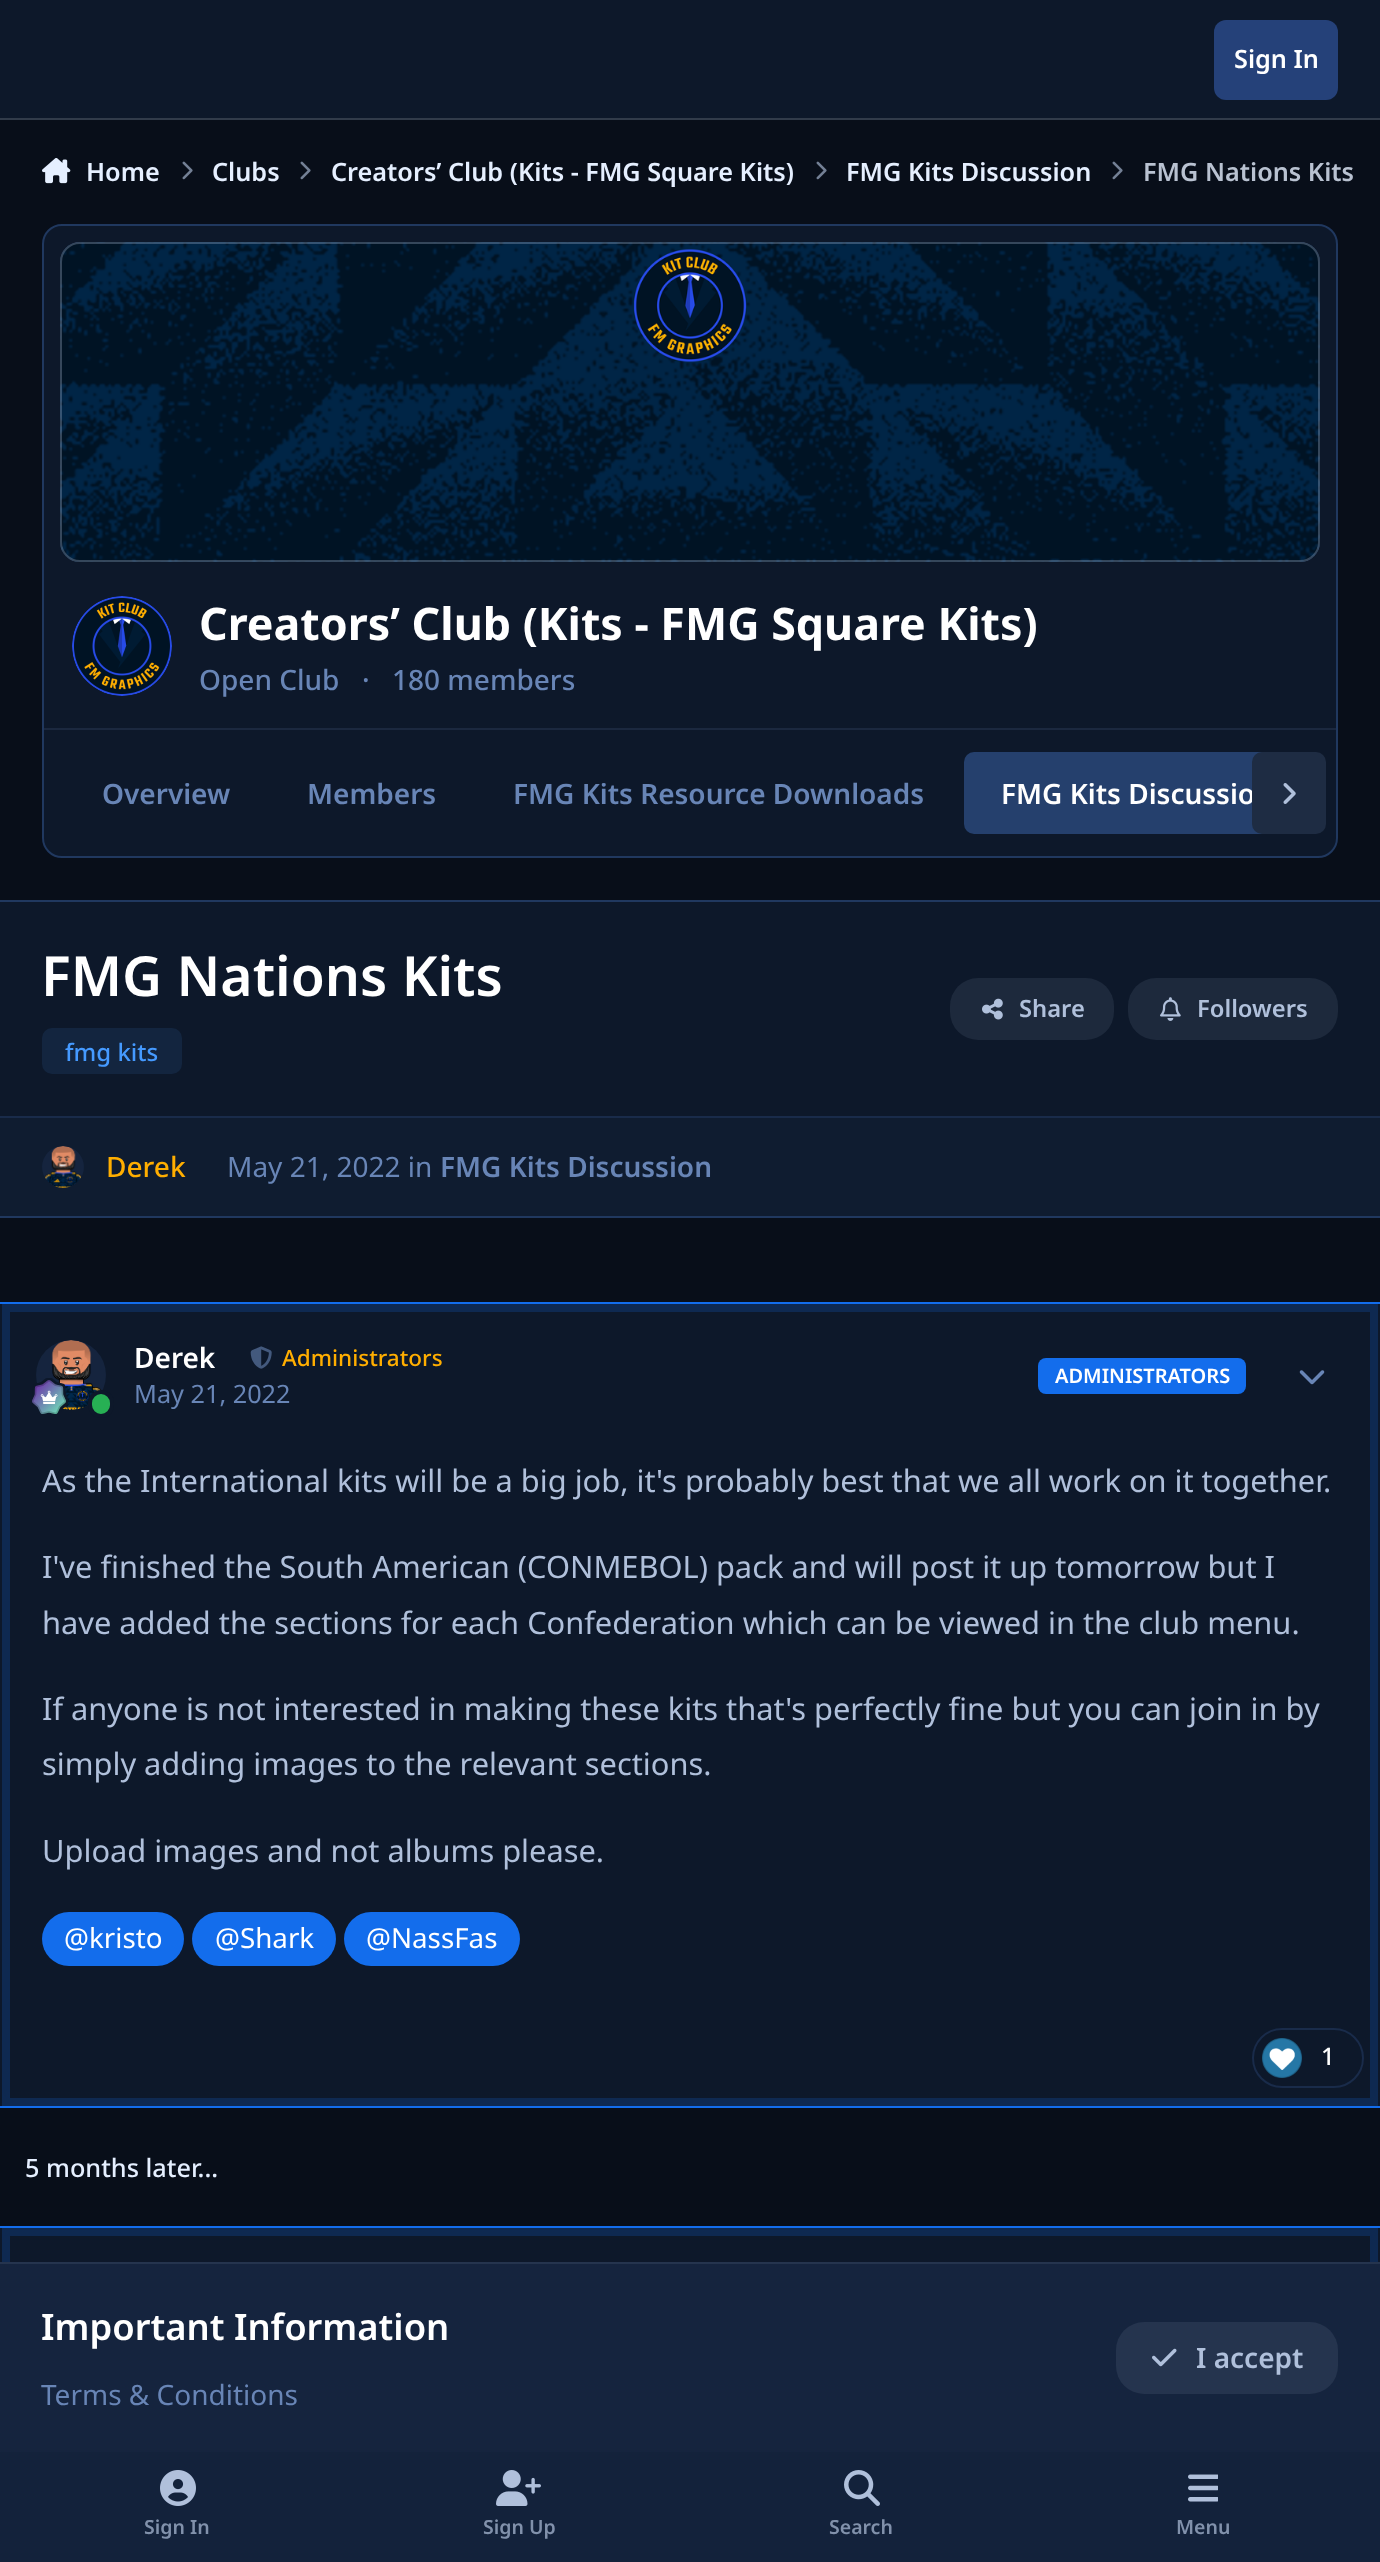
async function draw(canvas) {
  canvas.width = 1380;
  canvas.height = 2562;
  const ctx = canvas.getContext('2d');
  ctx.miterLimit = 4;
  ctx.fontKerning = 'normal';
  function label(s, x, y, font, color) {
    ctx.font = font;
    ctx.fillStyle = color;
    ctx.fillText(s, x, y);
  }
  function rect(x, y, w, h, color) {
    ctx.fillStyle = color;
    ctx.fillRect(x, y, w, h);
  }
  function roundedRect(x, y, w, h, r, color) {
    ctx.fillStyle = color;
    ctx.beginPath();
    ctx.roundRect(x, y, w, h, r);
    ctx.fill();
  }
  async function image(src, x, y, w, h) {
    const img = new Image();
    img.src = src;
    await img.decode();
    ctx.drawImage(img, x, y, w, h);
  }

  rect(0, 0, 1380, 2562, '#080e19');
  rect(0, 0, 1380, 118, '#0d182a');
  rect(0, 118, 1380, 2, '#313b4a');
  roundedRect(1214, 20, 124, 80, 12, '#254179');
  label('Sign In', 1234, 68, '600 25.25px Noto Sans', '#fff');
  await image('assets/img1.png', 42, 158, 29, 26);
  label('Home', 86, 181, '600 25.25px Noto Sans', '#e5efff');
  await image('assets/img2.png', 182, 161, 11, 19);
  label('Clubs', 212, 181, '600 25.25px Noto Sans', '#e5efff');
  await image('assets/img2.png', 300, 161, 11, 19);
  label('Creators’ Club (Kits - FMG Square Kits)', 331, 181, '600 25.25px Noto Sans', '#e5efff');
  await image('assets/img2.png', 816, 161, 11, 19);
  label('FMG Kits Discussion', 846, 181, '600 25.25px Noto Sans', '#e5efff');
  await image('assets/img2.png', 1112, 161, 11, 19);
  label('FMG Nations Kits', 1143, 181, '600 25.25px Noto Sans', '#b9c2d1');
  ctx.fillStyle = '#0d182a';
  ctx.beginPath();
  ctx.roundRect(43, 225, 1294, 632, 19);
  ctx.fill();
  ctx.strokeStyle = '#20385f';
  ctx.lineWidth = 2;
  ctx.stroke();
  roundedRect(60, 242, 1260, 320, 20, '#25406d');
  await image('assets/img3.png', 60, 242, 1260, 320);
  ctx.beginPath();
  ctx.roundRect(61, 243, 1258, 318, 19);
  ctx.strokeStyle = '#b0c0db4d';
  ctx.stroke();
  ctx.fillStyle = '#15243e';
  ctx.beginPath();
  ctx.arc(122, 646, 50, 0, 2 * Math.PI);
  ctx.fill();
  await image('assets/img4.png', 72, 596, 100, 100);
  label('Creators’ Club (Kits - FMG Square Kits)', 199, 640, 'bold 44.75px Noto Sans', '#fff');
  label('Open Club', 199, 690, '500 28px Noto Sans', '#6885b6');
  label('·', 362, 690, '500 28px Noto Sans', '#6885b6');
  label('180 members', 392, 690, '500 28px Noto Sans', '#6885b6');
  rect(44, 728, 1292, 2, '#1b283f');
  label('Overview', 102, 804, '600 28px Noto Sans', '#6885b6');
  label('Members', 307, 804, '600 28px Noto Sans', '#6885b6');
  label('FMG Kits Resource Downloads', 513, 804, '600 28px Noto Sans', '#6885b6');
  roundedRect(964, 752, 346, 82, 10, '#25406d');
  label('FMG Kits Discussio', 1001, 804, '600 28px Noto Sans', '#fff');
  roundedRect(1252, 752, 74, 82, 10, '#1e2c43');
  await image('assets/img5.png', 1283, 783, 13, 21);
  rect(0, 902, 1380, 214, '#0d182a');
  rect(0, 900, 1380, 2, '#20385f');
  rect(0, 1216, 1380, 2, '#20385f');
  label('FMG Nations Kits', 41, 996, '600 55.25px Noto Sans', '#fff');
  roundedRect(42, 1028, 140, 46, 10, '#13253f');
  label('fmg kits', 65, 1061, '500 24px Noto Sans', '#459aff');
  roundedRect(950, 978, 164, 62, 28, '#1d293c');
  await image('assets/img6.png', 982, 998, 21, 22);
  label('Share', 1019, 1017, '600 23.75px Noto Sans', '#b0c0db');
  roundedRect(1128, 978, 210, 62, 28, '#1d293c');
  await image('assets/img7.png', 1160, 997, 21, 24);
  label('Followers', 1197, 1017, '600 23.75px Noto Sans', '#b0c0db');
  rect(0, 1118, 1380, 98, '#0f1c30');
  rect(0, 1116, 1380, 2, '#192b4a');
  ctx.fillStyle = '#15243e';
  ctx.beginPath();
  ctx.arc(63, 1167, 21, 0, 2 * Math.PI);
  ctx.fill();
  await image('assets/img8.png', 45, 1146, 37, 42);
  label('Derek', 106, 1177, '500 28px Noto Sans', '#ffae00');
  label('May 21, 2022 in', 227, 1177, '28px Noto Sans', '#6885b6');
  label('FMG Kits Discussion', 440, 1177, '600 28px Noto Sans', '#6885b6');
  rect(0, 1304, 1380, 802, '#0d182a');
  rect(0, 1302, 1380, 2, '#136dec');
  rect(0, 2106, 1380, 2, '#136dec');
  await image('assets/img12.png', 1299, 1370, 26, 15);
  ctx.strokeStyle = '#0e2951';
  ctx.lineWidth = 8;
  ctx.strokeRect(6, 1308, 1368, 794);
  ctx.fillStyle = '#15243e';
  ctx.beginPath();
  ctx.arc(71, 1375, 35, 0, 2 * Math.PI);
  ctx.fill();
  await image('assets/img9.png', 51, 1340, 51, 70);
  await image('assets/img10.png', 32, 1378, 36, 36);
  ctx.fillStyle = '#27b054';
  ctx.beginPath();
  ctx.roundRect(90, 1392, 22, 24, 11);
  ctx.fill();
  ctx.strokeStyle = '#0d182a';
  ctx.lineWidth = 4;
  ctx.stroke();
  label('Derek', 134, 1368, '600 28px Noto Sans', '#fff');
  await image('assets/img11.png', 250, 1346, 22, 23);
  label('Administrators', 282, 1366, '500 22.5px Noto Sans', '#ffae00');
  label('May 21, 2022', 134, 1403, '25.25px Noto Sans', '#6885b6');
  roundedRect(1038, 1358, 208, 36, 8, '#136dec');
  label('ADMINISTRATORS', 1055, 1383, '600 20px Noto Sans', '#fff');
  label('As the International kits will be a big job, it\'s probably best that we all work on it together.', 42, 1492, '30.8px Noto Sans', '#b0c0db');
  label('I\'ve finished the South American (CONMEBOL) pack and will post it up tomorrow but I', 42, 1578, '30.8px Noto Sans', '#b0c0db');
  label('have added the sections for each Confederation which can be viewed in the club menu.', 42, 1634, '30.8px Noto Sans', '#b0c0db');
  label('If anyone is not interested in making these kits that\'s perfectly fine but you can join in by', 42, 1720, '30.8px Noto Sans', '#b0c0db');
  label('simply adding images to the relevant sections.', 42, 1775, '30.8px Noto Sans', '#b0c0db');
  label('Upload images and not albums please.', 42, 1862, '30.8px Noto Sans', '#b0c0db');
  roundedRect(42, 1912, 142, 54, 27, '#136dec');
  label('@kristo', 64, 1948, '27.75px Noto Sans', '#fff');
  roundedRect(192, 1912, 144, 54, 27, '#136dec');
  label('@Shark', 215, 1948, '27.75px Noto Sans', '#fff');
  roundedRect(344, 1912, 176, 54, 27, '#136dec');
  label('@NassFas', 366, 1948, '27.75px Noto Sans', '#fff');
  ctx.beginPath();
  ctx.roundRect(1253, 2029, 110, 58, 29);
  ctx.strokeStyle = '#192b4a';
  ctx.lineWidth = 2;
  ctx.stroke();
  await image('assets/img13.png', 1262, 2038, 40, 40);
  label('1', 1321, 2065, '500 24px Noto Sans', '#fff');
  label('5 months later...', 25, 2177, '500 25.25px Noto Sans', '#e5efff');
  rect(0, 2228, 1380, 34, '#0d182a');
  rect(0, 2226, 1380, 2, '#136dec');
  ctx.strokeStyle = '#0e2951';
  ctx.lineWidth = 8;
  ctx.strokeRect(6, 2232, 1368, 294);
  rect(0, 2264, 1380, 188, '#15243e');
  rect(0, 2262, 1380, 2, '#25344e');
  label('Important Information', 41, 2340, '600 36.4px Noto Sans', '#fff');
  label('Terms & Conditions', 41, 2405, '28px Noto Sans', '#6885b6');
  roundedRect(1116, 2322, 222, 72, 28, '#25344e');
  await image('assets/img14.png', 1152, 2348, 25, 19);
  label('I accept', 1196, 2368, '600 28px Noto Sans', '#b0c0db');
  rect(0, 2452, 1380, 110, '#13223b');
  await image('assets/img15.png', 160, 2470, 36, 36);
  label('Sign In', 144, 2534, '600 19.5px Noto Sans', '#8191ab');
  await image('assets/img16.png', 496, 2470, 45, 36);
  label('Sign Up', 483, 2534, '600 19.5px Noto Sans', '#8191ab');
  await image('assets/img17.png', 844, 2470, 36, 36);
  label('Search', 829, 2534, '600 19.5px Noto Sans', '#8191ab');
  await image('assets/img18.png', 1188, 2474, 30, 28);
  label('Menu', 1176, 2534, '600 19.5px Noto Sans', '#8191ab');
}

draw(document.querySelector('canvas'));
